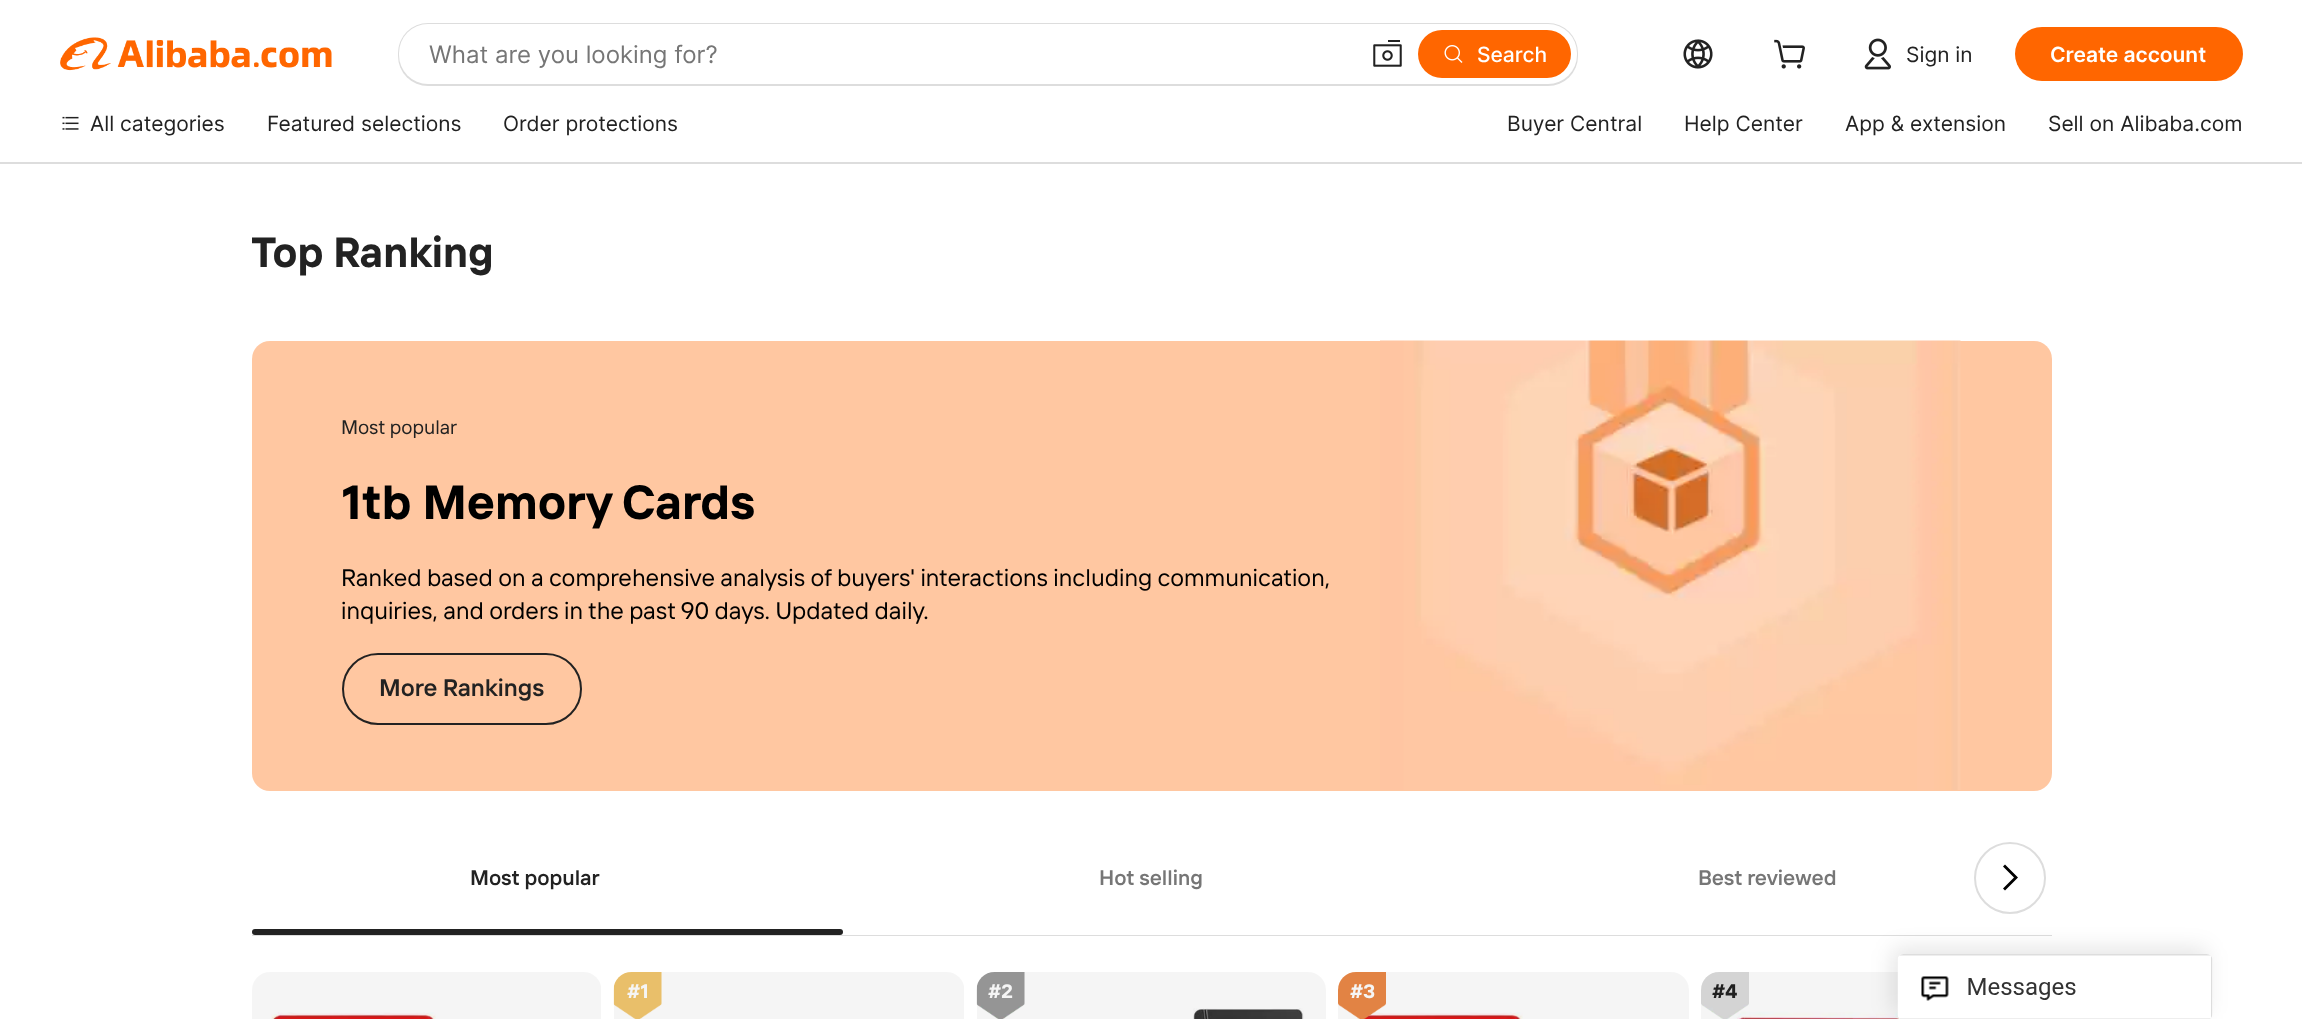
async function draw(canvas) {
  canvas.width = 2302;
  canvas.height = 1019;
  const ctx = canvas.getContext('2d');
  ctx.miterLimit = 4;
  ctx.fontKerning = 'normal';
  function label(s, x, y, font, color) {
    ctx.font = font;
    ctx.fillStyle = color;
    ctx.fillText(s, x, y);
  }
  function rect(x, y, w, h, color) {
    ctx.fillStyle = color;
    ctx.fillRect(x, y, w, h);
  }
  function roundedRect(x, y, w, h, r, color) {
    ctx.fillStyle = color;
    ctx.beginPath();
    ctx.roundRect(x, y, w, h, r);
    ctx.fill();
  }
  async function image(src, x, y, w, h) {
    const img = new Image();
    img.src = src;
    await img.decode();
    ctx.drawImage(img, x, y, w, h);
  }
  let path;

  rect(0, 0, 2302, 1019, '#fff');
  rect(0, 162, 2302, 2, '#ddd');
  await image('assets/img1.png', 60, 37, 272, 34);
  roundedRect(398, 23, 1180, 63, 30, '#ddd');
  roundedRect(399, 24, 1178, 60, 29, '#fff');
  label('What are you looking for?', 429, 63, '24px Inter', '#767676');
  await image('assets/img2.png', 1373, 40, 29, 27);
  roundedRect(1418, 30, 153, 48, 24, '#f60');
  await image('assets/img3.png', 1444, 45, 19, 18);
  label('Search', 1477, 62, '500 21px Inter', '#fff');
  await image('assets/img4.png', 1683, 39, 30, 30);
  await image('assets/img5.png', 1774, 39, 31, 30);
  await image('assets/img6.png', 1864, 38, 27, 32);
  label('Sign in', 1906, 62, '21px Inter', '#222');
  roundedRect(2015, 27, 228, 54, 27, '#f60');
  label('Create account', 2050, 62, '600 21px Inter', '#fff');
  await image('assets/img7.png', 62, 116, 17, 14);
  label('All categories', 90, 131, '21px Inter', '#222');
  label('Featured selections', 267, 131, '21px Inter', '#222');
  label('Order protections', 503, 131, '21px Inter', '#222');
  label('Buyer Central', 1507, 131, '21px Inter', '#222');
  label('Help Center', 1684, 131, '21px Inter', '#222');
  label('App & extension', 1845, 131, '21px Inter', '#222');
  label('Sell on Alibaba.com', 2048, 131, '21px Inter', '#222');
  ctx.save();
  ctx.beginPath();
  ctx.rect(252, 224, 242, 57);
  ctx.clip();
  label('Top Ranking', 251, 267, 'bold 42px "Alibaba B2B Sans"', '#222');
  ctx.restore();
  roundedRect(252, 341, 1800, 450, 18, '#ffc7a1');
  label('Most popular', 341, 434, '19.5px "Alibaba B2B Sans"', '#222');
  label('1tb Memory Cards', 341, 519, 'bold 48px "Alibaba B2B Sans"', '#000');
  label('Ranked based on a comprehensive analysis of buyers\' interactions including communication,', 341, 586, '24px "Alibaba B2B Sans"', '#000');
  label('inquiries, and orders in the past 90 days. Updated daily.', 341, 619, '24px "Alibaba B2B Sans"', '#000');
  ctx.beginPath();
  ctx.roundRect(343, 654, 238, 70, 35);
  ctx.strokeStyle = '#222';
  ctx.lineWidth = 2;
  ctx.stroke();
  label('More Rankings', 379, 696, '600 24px "Alibaba B2B Sans"', '#222');
  await image('assets/img8.png', 1380, 340, 581, 450);
  rect(252, 935, 1800, 1, '#ddd');
  label('Most popular', 470, 885, '600 21px "Alibaba B2B Sans"', '#222');
  roundedRect(252, 929, 591, 6, 3, '#222');
  label('Hot selling', 1099, 885, '600 21px "Alibaba B2B Sans"', '#767676');
  label('Best reviewed', 1698, 885, '600 21px "Alibaba B2B Sans"', '#767676');
  ctx.fillStyle = '#000';
  path = new Path2D('M2014 877.5L2003 866.5L2005 864.5L2018 877.5L2005 890.5L2003 888.5Z');
  ctx.fill(path);
  ctx.beginPath();
  ctx.arc(2010, 878, 35, 0, 2 * Math.PI);
  ctx.strokeStyle = '#ddd';
  ctx.stroke();
  await image('assets/img10.png', 271, 1012, 165, 7);
  await image('assets/img9.png', 252, 972, 349, 47);
  await image('assets/img12.png', 613, 972, 49, 47);
  label('#1', 627, 998, 'bold 19.5px "Alibaba B2B Sans"', '#fff');
  await image('assets/img11.png', 614, 972, 350, 47);
  await image('assets/img14.png', 976, 972, 49, 47);
  label('#2', 988, 998, 'bold 19.5px "Alibaba B2B Sans"', '#fff');
  await image('assets/img15.png', 1193, 1008, 111, 11);
  await image('assets/img13.png', 977, 972, 349, 47);
  await image('assets/img18.png', 1357, 1012, 166, 7);
  await image('assets/img17.png', 1338, 972, 48, 47);
  label('#3', 1350, 998, 'bold 19.5px "Alibaba B2B Sans"', '#fff');
  await image('assets/img16.png', 1338, 972, 351, 47);
  await image('assets/img21.png', 1733, 1011, 167, 8);
  await image('assets/img20.png', 1701, 972, 48, 47);
  label('#4', 1712, 998, 'bold 19.5px "Alibaba B2B Sans"', '#222');
  await image('assets/img19.png', 1701, 972, 199, 47);
  ctx.fillStyle = '#0000001a';
  ctx.filter = 'blur(10.5px)';
  ctx.beginPath();
  ctx.roundRect(1892, 948, 315, 66, 6);
  ctx.fill();
  ctx.filter = 'none';
  await image('assets/img22.png', 1897, 954, 316, 65);
}

draw(document.querySelector('canvas'));
